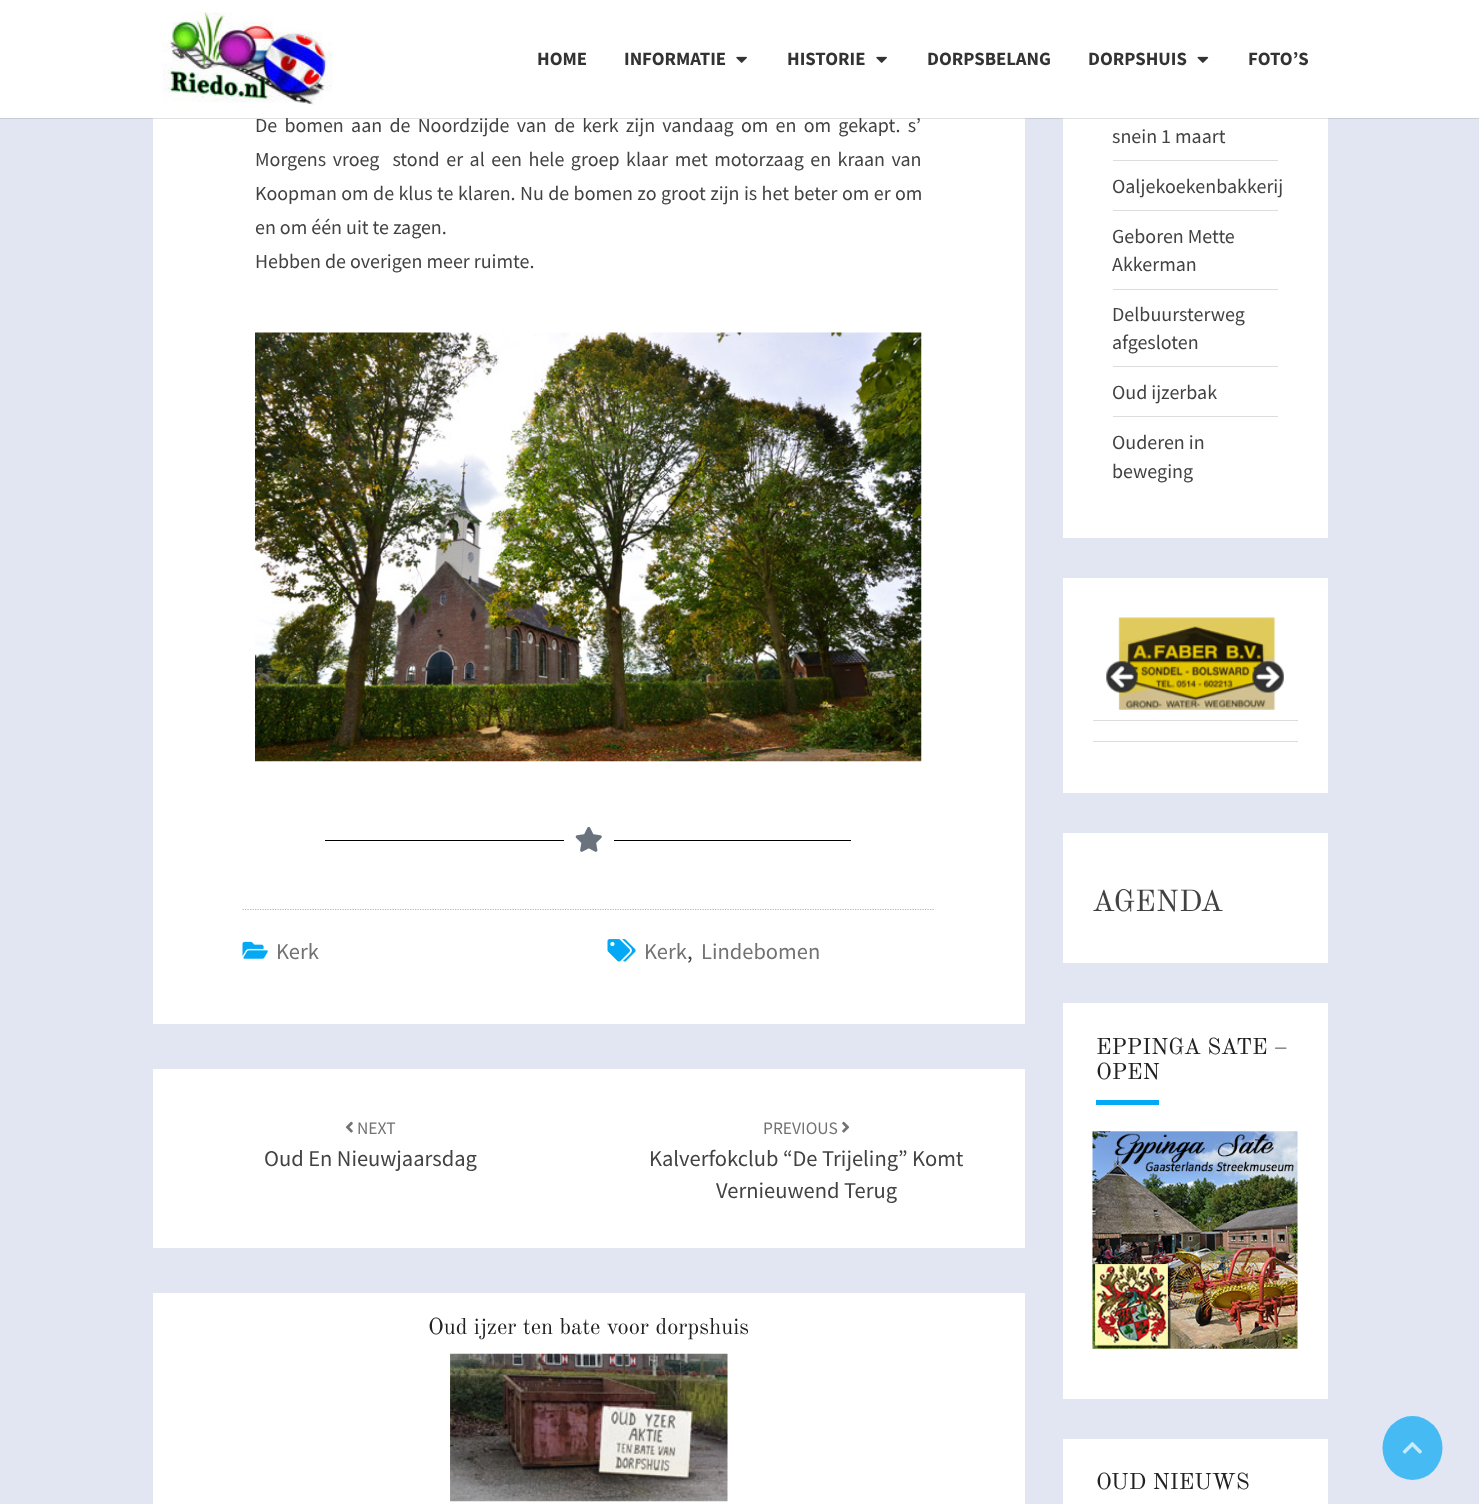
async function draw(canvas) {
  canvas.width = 1479;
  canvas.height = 1504;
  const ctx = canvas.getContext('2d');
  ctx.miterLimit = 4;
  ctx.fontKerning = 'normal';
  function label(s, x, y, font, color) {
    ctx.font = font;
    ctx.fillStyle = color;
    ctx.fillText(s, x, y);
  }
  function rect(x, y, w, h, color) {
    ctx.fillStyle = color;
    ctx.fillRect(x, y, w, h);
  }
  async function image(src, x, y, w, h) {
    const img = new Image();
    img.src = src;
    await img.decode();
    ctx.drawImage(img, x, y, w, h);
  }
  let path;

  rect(0, 0, 1479, 1504, '#e1e6f2');
  rect(153, 118, 872, 906, '#fff');
  rect(1063, 118, 265, 420, '#fff');
  ctx.fillStyle = '#64646433';
  ctx.filter = 'blur(0.5px)';
  ctx.beginPath();
  ctx.rect(0, 1, 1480, 118);
  ctx.fill();
  ctx.filter = 'none';
  ctx.wordSpacing = '3.25px';
  label('De bomen aan de Noordzijde van de kerk zijn vandaag om en om gekapt. s’', 255, 132, '20px Source Sans Pro', '#424242');
  rect(0, 0, 1479, 118, '#fff');
  await image('assets/img1.png', 162, 12, 171, 93);
  ctx.wordSpacing = '0px';
  label('HOME', 537, 65, 'bold 18.75px Source Sans Pro', '#333');
  label('INFORMATIE', 624, 65, 'bold 18.75px Source Sans Pro', '#333');
  await image('assets/img2.png', 736, 56, 11, 7);
  label('HISTORIE', 787, 65, 'bold 18.75px Source Sans Pro', '#333');
  await image('assets/img2.png', 876, 56, 11, 7);
  label('DORPSBELANG', 927, 65, 'bold 18.75px Source Sans Pro', '#333');
  label('DORPSHUIS', 1088, 65, 'bold 18.75px Source Sans Pro', '#333');
  await image('assets/img3.png', 1197, 56, 12, 7);
  label('FOTO’S', 1248, 65, 'bold 18.75px Source Sans Pro', '#333');
  ctx.wordSpacing = '2.5px';
  label('Morgens vroeg  stond er al een hele groep klaar met motorzaag en kraan van', 255, 166, '20px Source Sans Pro', '#424242');
  ctx.wordSpacing = '0.4px';
  label('Koopman om de klus te klaren. Nu de bomen zo groot zijn is het beter om er om', 255, 200, '20px Source Sans Pro', '#424242');
  ctx.wordSpacing = '0px';
  label('en om één uit te zagen.', 255, 234, '20px Source Sans Pro', '#424242');
  label('Hebben de overigen meer ruimte.', 255, 268, '20px Source Sans Pro', '#424242');
  await image('assets/img4.png', 255, 332, 667, 430);
  rect(325, 840, 239, 1, '#000');
  await image('assets/img5.png', 575, 826, 27, 26);
  rect(614, 840, 237, 1, '#000');
  path = new Path2D('M242.5 909.5H935');
  ctx.strokeStyle = '#b6b6b6';
  ctx.lineWidth = 1.2;
  ctx.setLineDash([1.25, 1.25]);
  ctx.stroke(path);
  await image('assets/img6.png', 242, 941, 26, 18);
  label('Kerk', 276, 959, '22.5px Source Sans Pro', '#727272');
  await image('assets/img7.png', 607, 939, 29, 23);
  label('Kerk', 644, 959, '22.5px Source Sans Pro', '#727272');
  label(',', 687, 959, '22.5px Source Sans Pro', '#424242');
  label('Lindebomen', 701, 959, '22.5px Source Sans Pro', '#727272');
  rect(153, 1069, 872, 179, '#fff');
  await image('assets/img8.png', 345, 1121, 8, 12);
  label('NEXT', 357, 1134, '17.5px Source Sans Pro', '#727272');
  label('Oud En Nieuwjaarsdag', 264, 1166, '22.5px Source Sans Pro', '#424242');
  label('PREVIOUS', 763, 1134, '17.5px Source Sans Pro', '#727272');
  await image('assets/img9.png', 842, 1121, 8, 12);
  label('Kalverfokclub “De Trijeling” Komt', 649, 1166, '22.5px Source Sans Pro', '#424242');
  label('Vernieuwend Terug', 716, 1198, '22.5px Source Sans Pro', '#424242');
  rect(153, 1293, 872, 211, '#fff');
  label('Oud ijzer ten bate voor dorpshuis', 428, 1334, '22.5px Old Standard TT', '#212121');
  await image('assets/img10.png', 450, 1353, 278, 149);
  rect(1113, 160, 165, 1, '#ddd');
  label('snein 1 maart', 1112, 143, '20px Source Sans Pro', '#424242');
  rect(1113, 210, 165, 1, '#ddd');
  label('Oaljekoekenbakkerij', 1112, 193, '20px Source Sans Pro', '#424242');
  rect(1113, 289, 165, 1, '#ddd');
  label('Geboren Mette', 1112, 243, '20px Source Sans Pro', '#424242');
  label('Akkerman', 1112, 271, '20px Source Sans Pro', '#424242');
  rect(1113, 366, 165, 1, '#ddd');
  label('Delbuursterweg', 1112, 321, '20px Source Sans Pro', '#424242');
  label('afgesloten', 1112, 349, '20px Source Sans Pro', '#424242');
  rect(1113, 416, 165, 1, '#ddd');
  label('Oud ijzerbak', 1112, 399, '20px Source Sans Pro', '#424242');
  label('Ouderen in', 1112, 449, '20px Source Sans Pro', '#424242');
  label('beweging', 1112, 478, '20px Source Sans Pro', '#424242');
  rect(1063, 578, 265, 215, '#fff');
  rect(1093, 720, 205, 1, '#ddd');
  await image('assets/img11.png', 1118, 617, 158, 93);
  rect(1093, 741, 205, 1, '#ddd');
  await image('assets/img12.png', 1106, 661, 32, 32);
  await image('assets/img13.png', 1252, 661, 32, 32);
  rect(1063, 833, 265, 130, '#fff');
  label('AGENDA', 1092, 911, '30px Old Standard TT', '#424242');
  rect(1063, 1003, 265, 396, '#fff');
  label('EPPINGA SATE –', 1096, 1054, '22.5px Old Standard TT', '#212121');
  label('OPEN', 1096, 1079, '22.5px Old Standard TT', '#212121');
  rect(1096, 1100, 63, 5, '#03a9f4');
  await image('assets/img14.png', 1092, 1131, 206, 218);
  rect(1063, 1439, 265, 65, '#fff');
  label('OUD NIEUWS', 1096, 1489, '22.5px Old Standard TT', '#212121');
  ctx.fillStyle = '#46bbf3';
  ctx.beginPath();
  ctx.ellipse(1412.5, 1448, 30, 32, 0, 0, 2 * Math.PI);
  ctx.fill();
  await image('assets/img15.png', 1402, 1442, 20, 12);
}

draw(document.querySelector('canvas'));
